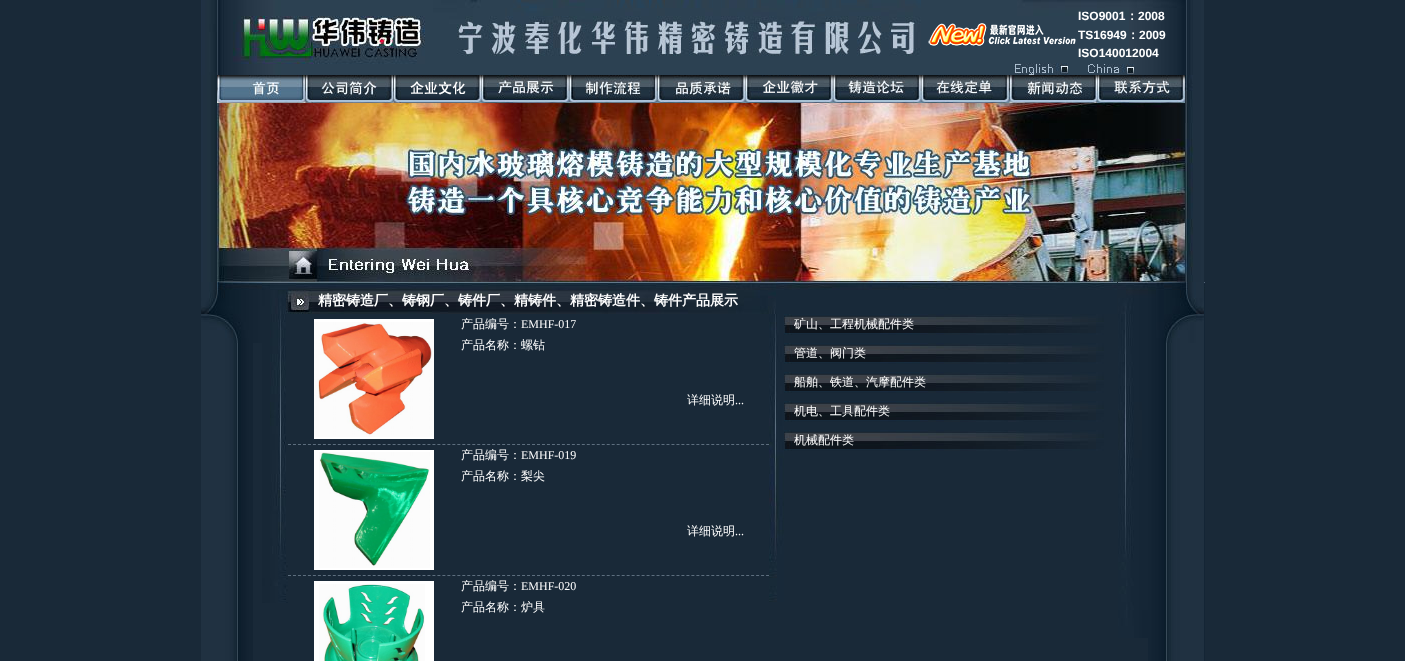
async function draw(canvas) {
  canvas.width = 1405;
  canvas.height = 661;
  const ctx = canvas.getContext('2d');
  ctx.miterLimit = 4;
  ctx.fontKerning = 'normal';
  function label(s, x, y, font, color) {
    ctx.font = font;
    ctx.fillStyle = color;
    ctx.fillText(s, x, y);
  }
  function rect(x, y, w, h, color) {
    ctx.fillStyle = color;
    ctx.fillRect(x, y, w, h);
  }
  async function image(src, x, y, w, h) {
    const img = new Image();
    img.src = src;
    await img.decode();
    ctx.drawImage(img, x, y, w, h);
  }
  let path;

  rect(0, 0, 1405, 661, '#192938');
  await image('assets/img1.png', 201, 0, 1003, 75);
  await image('assets/img2.png', 928, 23, 148, 23);
  label('ISO9001', 1078, 20, 'bold 12px Liberation Sans', '#fff');
  label('：', 1126, 20, 'bold 12px WenQuanYi Zen Hei', '#fff');
  label('2008', 1138, 20, 'bold 12px Liberation Sans', '#fff');
  label('TS16949', 1078, 39, 'bold 12px Liberation Sans', '#fff');
  label('：', 1127, 39, 'bold 12px WenQuanYi Zen Hei', '#fff');
  label('2009', 1139, 39, 'bold 12px Liberation Sans', '#fff');
  label('ISO140012004', 1078, 57, 'bold 12px Liberation Sans', '#fff');
  await image('assets/img3.png', 1014, 63, 54, 12);
  await image('assets/img4.png', 1088, 64, 46, 10);
  await image('assets/img5.png', 201, 75, 1003, 207);
  await image('assets/img6.png', 217, 75, 88, 28);
  await image('assets/img7.png', 305, 75, 88, 28);
  await image('assets/img8.png', 393, 75, 88, 28);
  await image('assets/img9.png', 481, 75, 88, 28);
  await image('assets/img10.png', 569, 75, 88, 28);
  await image('assets/img11.png', 657, 75, 88, 28);
  await image('assets/img12.png', 745, 75, 88, 28);
  await image('assets/img13.png', 833, 75, 88, 28);
  await image('assets/img14.png', 921, 75, 88, 28);
  await image('assets/img15.png', 1009, 75, 88, 28);
  await image('assets/img16.png', 1097, 75, 88, 28);
  await image('assets/img17.png', 201, 343, 52, 318);
  await image('assets/img18.png', 201, 282, 61, 61);
  await image('assets/img19.png', 262, 282, 26, 321);
  await image('assets/img20.png', 288, 282, 829, 32);
  label('精密铸造厂、铸钢厂、铸件厂、精铸件、精密铸造件、铸件产品展示', 318, 305, 'bold 14px WenQuanYi Zen Hei', '#fff');
  path = new Path2D('M288 444.5H769');
  ctx.strokeStyle = '#5d6e7e';
  ctx.setLineDash([3, 1.98]);
  ctx.stroke(path);
  rect(314, 319, 120, 120, '#fff');
  await image('assets/img21.png', 314, 322, 120, 115);
  label('产品编号：', 461, 328, '500 12px WenQuanYi Zen Hei', '#fff');
  label('EMHF-017', 521, 328, '12px Liberation Serif', '#fff');
  label('产品名称：螺钻', 461, 349, '500 12px WenQuanYi Zen Hei', '#fff');
  label('详细说明', 687, 404, '500 12px WenQuanYi Zen Hei', '#fff');
  label('...', 735, 404, '12px Liberation Serif', '#fff');
  path = new Path2D('M288 575.5H769');
  ctx.stroke(path);
  rect(314, 450, 120, 120, '#fff');
  await image('assets/img22.png', 319, 452, 111, 116);
  label('产品编号：', 461, 459, '500 12px WenQuanYi Zen Hei', '#fff');
  label('EMHF-019', 521, 459, '12px Liberation Serif', '#fff');
  label('产品名称：梨尖', 461, 480, '500 12px WenQuanYi Zen Hei', '#fff');
  label('详细说明', 687, 535, '500 12px WenQuanYi Zen Hei', '#fff');
  label('...', 735, 535, '12px Liberation Serif', '#fff');
  rect(314, 581, 120, 80, '#fff');
  await image('assets/img23.png', 319, 584, 106, 77);
  label('产品编号：', 461, 590, '500 12px WenQuanYi Zen Hei', '#fff');
  label('EMHF-020', 521, 590, '12px Liberation Serif', '#fff');
  label('产品名称：炉具', 461, 611, '500 12px WenQuanYi Zen Hei', '#fff');
  await image('assets/img24.png', 769, 314, 15, 288);
  await image('assets/img25.png', 784, 314, 320, 21);
  label('矿山、工程机械配件类', 794, 328, '500 12px WenQuanYi Zen Hei', '#fff');
  await image('assets/img25.png', 784, 343, 320, 21);
  label('管道、阀门类', 794, 357, '500 12px WenQuanYi Zen Hei', '#fff');
  await image('assets/img25.png', 784, 372, 320, 21);
  label('船舶、铁道、汽摩配件类', 794, 386, '500 12px WenQuanYi Zen Hei', '#fff');
  await image('assets/img25.png', 784, 401, 320, 21);
  label('机电、工具配件类', 794, 415, '500 12px WenQuanYi Zen Hei', '#fff');
  await image('assets/img25.png', 784, 430, 320, 21);
  label('机械配件类', 794, 444, '500 12px WenQuanYi Zen Hei', '#fff');
  await image('assets/img26.png', 1118, 282, 30, 356);
  await image('assets/img27.png', 1148, 343, 57, 318);
  await image('assets/img28.png', 1148, 282, 57, 61);
}

draw(document.querySelector('canvas'));
